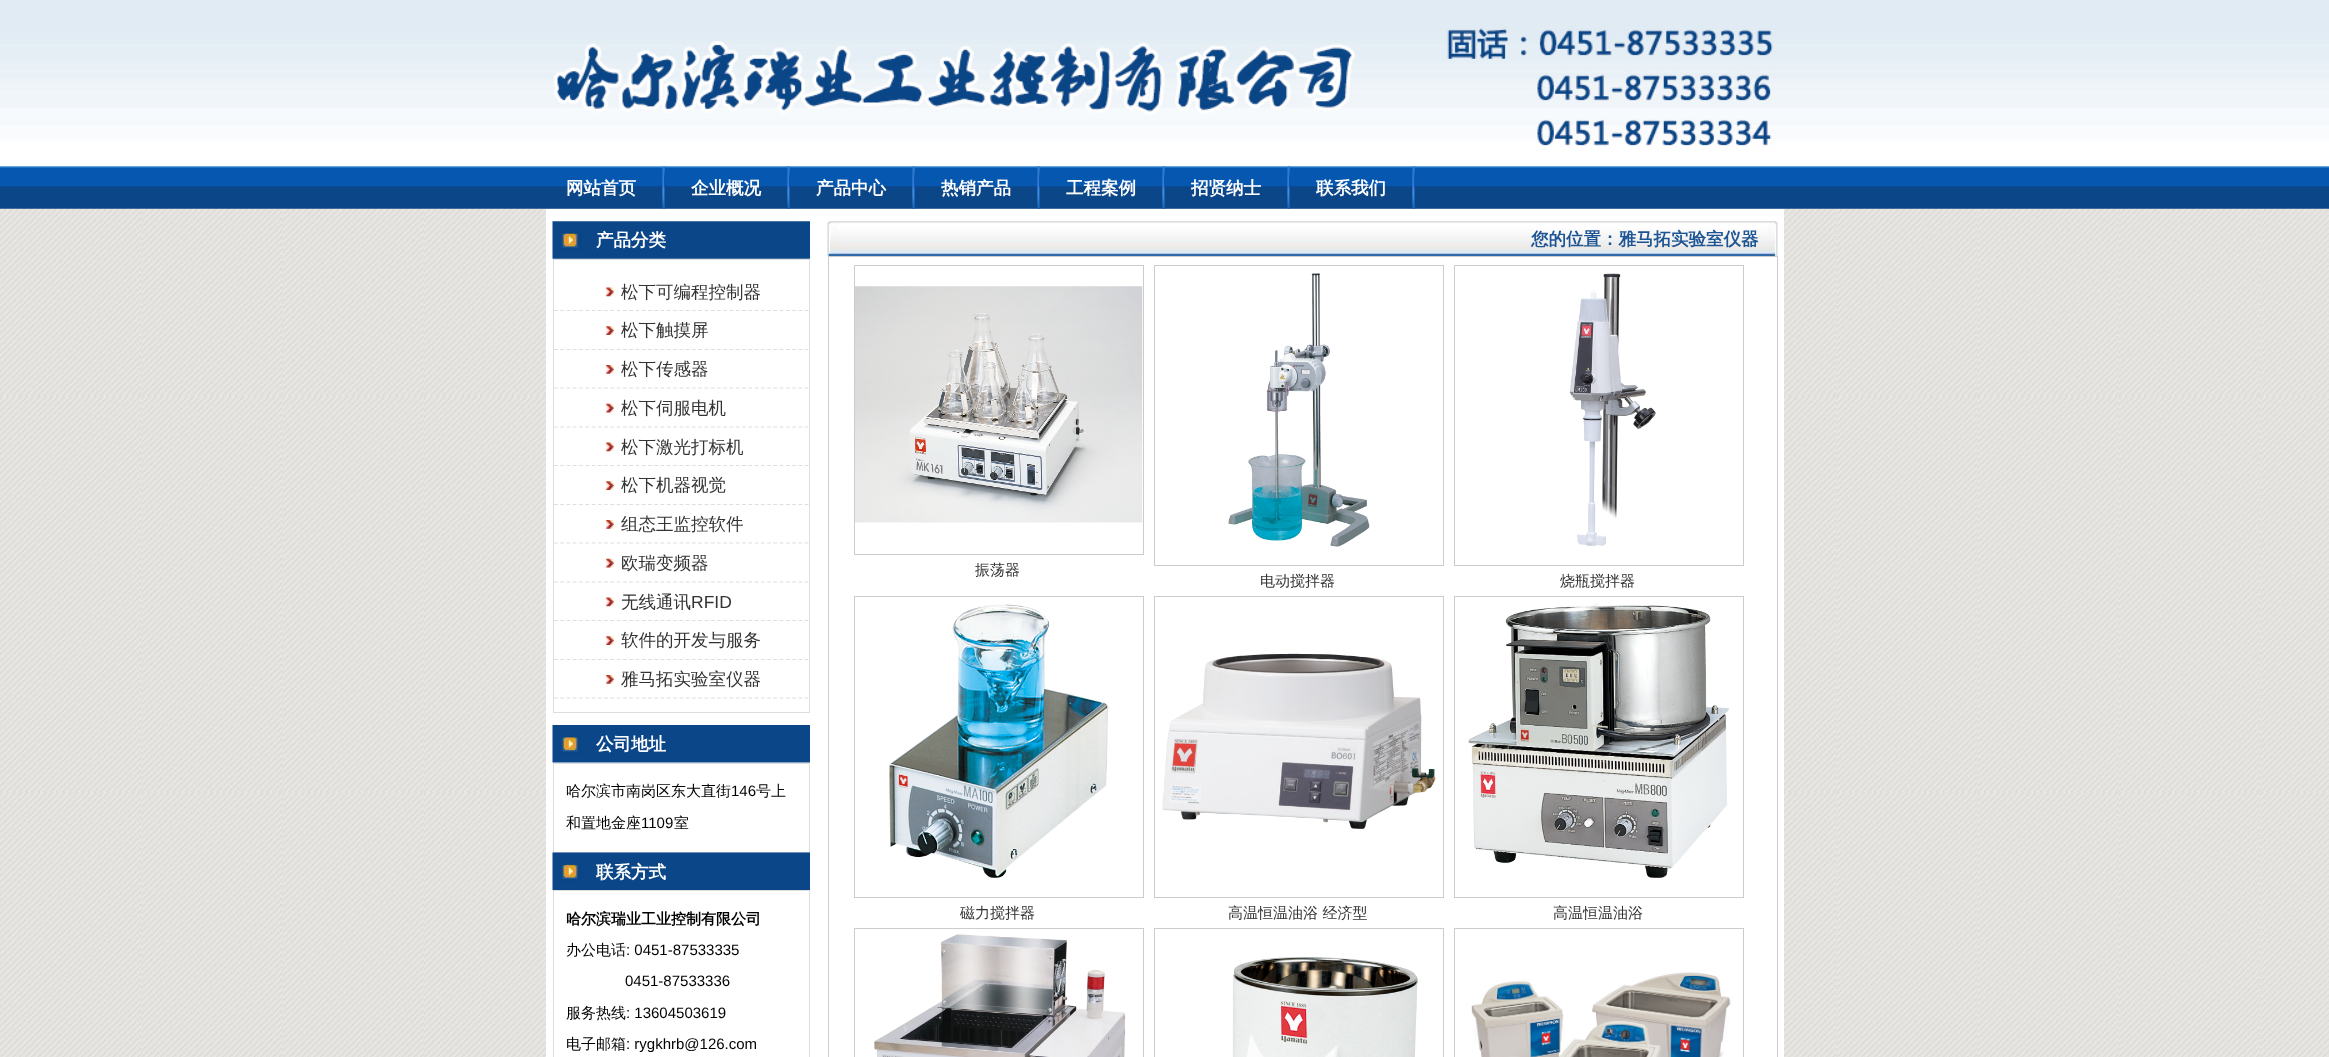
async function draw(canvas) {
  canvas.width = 2329;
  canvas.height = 1057;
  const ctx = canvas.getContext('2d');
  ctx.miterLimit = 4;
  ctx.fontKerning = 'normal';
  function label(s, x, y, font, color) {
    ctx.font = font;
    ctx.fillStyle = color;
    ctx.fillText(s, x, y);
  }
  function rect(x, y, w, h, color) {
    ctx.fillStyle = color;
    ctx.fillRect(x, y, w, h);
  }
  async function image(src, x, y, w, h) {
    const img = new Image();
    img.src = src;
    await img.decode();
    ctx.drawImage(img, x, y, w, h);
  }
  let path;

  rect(0, 0, 2329, 1057, '#fff');
  await image('assets/img1.png', 0, 166, 2329, 891);
  await image('assets/img2.png', 0, 0, 2329, 167);
  await image('assets/img3.png', 0, 166, 2329, 43);
  label('网站首页', 566, 194, 'bold 17.5px WenQuanYi Zen Hei', '#fff');
  await image('assets/img4.png', 662, 166, 3, 43);
  label('企业概况', 691, 194, 'bold 17.5px WenQuanYi Zen Hei', '#fff');
  await image('assets/img4.png', 787, 166, 3, 43);
  label('产品中心', 816, 194, 'bold 17.5px WenQuanYi Zen Hei', '#fff');
  await image('assets/img4.png', 912, 166, 3, 43);
  label('热销产品', 941, 194, 'bold 17.5px WenQuanYi Zen Hei', '#fff');
  await image('assets/img4.png', 1037, 166, 3, 43);
  label('工程案例', 1066, 194, 'bold 17.5px WenQuanYi Zen Hei', '#fff');
  await image('assets/img4.png', 1162, 166, 3, 43);
  label('招贤纳士', 1191, 194, 'bold 17.5px WenQuanYi Zen Hei', '#fff');
  await image('assets/img4.png', 1287, 166, 3, 43);
  label('联系我们', 1316, 194, 'bold 17.5px WenQuanYi Zen Hei', '#fff');
  await image('assets/img4.png', 1412, 166, 3, 43);
  rect(546, 209, 1238, 848, '#fff');
  await image('assets/img5.png', 552, 221, 258, 38);
  label('产品分类', 596, 246, 'bold 17.5px WenQuanYi Zen Hei', '#fff');
  ctx.strokeStyle = '#dedede';
  ctx.strokeRect(553.5, 259.5, 256, 453);
  await image('assets/img6.png', 606, 287, 8, 10);
  path = new Path2D('M554 310.5H809');
  ctx.lineWidth = 1.2;
  ctx.setLineDash([3.75, 2.52]);
  ctx.stroke(path);
  label('松下可编程控制器', 621, 298, '500 17.5px WenQuanYi Zen Hei', '#333');
  await image('assets/img7.png', 606, 326, 8, 9);
  path = new Path2D('M554 349.5H809');
  ctx.stroke(path);
  label('松下触摸屏', 621, 336, '500 17.5px WenQuanYi Zen Hei', '#333');
  await image('assets/img8.png', 606, 365, 8, 9);
  path = new Path2D('M554 388H809');
  ctx.stroke(path);
  label('松下传感器', 621, 375, '500 17.5px WenQuanYi Zen Hei', '#333');
  await image('assets/img9.png', 606, 403, 8, 10);
  path = new Path2D('M554 427H809');
  ctx.stroke(path);
  label('松下伺服电机', 621, 414, '500 17.5px WenQuanYi Zen Hei', '#333');
  await image('assets/img6.png', 606, 442, 8, 10);
  path = new Path2D('M554 465.5H809');
  ctx.stroke(path);
  label('松下激光打标机', 621, 453, '500 17.5px WenQuanYi Zen Hei', '#333');
  await image('assets/img7.png', 606, 481, 8, 9);
  path = new Path2D('M554 504.5H809');
  ctx.stroke(path);
  label('松下机器视觉', 621, 491, '500 17.5px WenQuanYi Zen Hei', '#333');
  await image('assets/img8.png', 606, 520, 8, 9);
  path = new Path2D('M554 543H809');
  ctx.stroke(path);
  label('组态王监控软件', 621, 530, '500 17.5px WenQuanYi Zen Hei', '#333');
  await image('assets/img9.png', 606, 558, 8, 10);
  path = new Path2D('M554 582H809');
  ctx.stroke(path);
  label('欧瑞变频器', 621, 569, '500 17.5px WenQuanYi Zen Hei', '#333');
  await image('assets/img6.png', 606, 597, 8, 10);
  path = new Path2D('M554 620.5H809');
  ctx.stroke(path);
  label('无线通讯', 621, 608, '500 17.5px WenQuanYi Zen Hei', '#333');
  label('RFID', 691, 608, '17.5px Liberation Sans', '#333');
  await image('assets/img7.png', 606, 636, 8, 9);
  path = new Path2D('M554 659.5H809');
  ctx.stroke(path);
  label('软件的开发与服务', 621, 646, '500 17.5px WenQuanYi Zen Hei', '#333');
  await image('assets/img8.png', 606, 675, 8, 9);
  path = new Path2D('M554 698H809');
  ctx.stroke(path);
  label('雅马拓实验室仪器', 621, 685, '500 17.5px WenQuanYi Zen Hei', '#333');
  await image('assets/img10.png', 552, 725, 258, 38);
  label('公司地址', 596, 750, 'bold 17.5px WenQuanYi Zen Hei', '#fff');
  ctx.lineWidth = 1;
  ctx.setLineDash([]);
  ctx.strokeRect(553.5, 763.5, 256, 89);
  label('哈尔滨市南岗区东大直街', 566, 796, '500 15px WenQuanYi Zen Hei', '#000');
  label('146', 731, 796, '15px Liberation Sans', '#000');
  label('号上', 756, 796, '500 15px WenQuanYi Zen Hei', '#000');
  label('和置地金座', 566, 828, '500 15px WenQuanYi Zen Hei', '#000');
  label('1109', 641, 828, '15px Liberation Sans', '#000');
  label('室', 674, 828, '500 15px WenQuanYi Zen Hei', '#000');
  await image('assets/img11.png', 552, 852, 258, 38);
  label('联系方式', 596, 878, 'bold 17.5px WenQuanYi Zen Hei', '#fff');
  ctx.strokeRect(553.5, 890.5, 256, 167);
  label('哈尔滨瑞业工业控制有限公司', 566, 924, 'bold 15px WenQuanYi Zen Hei', '#000');
  label('办公电话', 566, 955, '500 15px WenQuanYi Zen Hei', '#000');
  label(': 0451-87533335', 626, 955, '15px Liberation Sans', '#000');
  label('0451-87533336', 625, 986, '15px Liberation Sans', '#000');
  label('服务热线', 566, 1018, '500 15px WenQuanYi Zen Hei', '#000');
  label(': 13604503619', 626, 1018, '15px Liberation Sans', '#000');
  label('电子邮箱', 566, 1049, '500 15px WenQuanYi Zen Hei', '#000');
  label(': rygkhrb@126.com', 626, 1049, '15px Liberation Sans', '#000');
  await image('assets/img12.png', 827, 221, 951, 36);
  label('您的位置：雅马拓实验室仪器', 1531, 245, 'bold 17.5px WenQuanYi Zen Hei', '#1d5494');
  ctx.strokeStyle = '#ccc';
  ctx.strokeRect(828.5, 256.5, 949, 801);
  ctx.strokeRect(854.5, 265.5, 289, 289);
  await image('assets/img13.png', 855, 286, 288, 237);
  label('振荡器', 975, 575, '500 15px WenQuanYi Zen Hei', '#333');
  ctx.strokeRect(1154.5, 265.5, 289, 300);
  await image('assets/img14.png', 1228, 273, 142, 274);
  label('电动搅拌器', 1260, 586, '500 15px WenQuanYi Zen Hei', '#333');
  ctx.strokeRect(1454.5, 265.5, 289, 300);
  await image('assets/img15.png', 1569, 273, 87, 273);
  label('烧瓶搅拌器', 1560, 586, '500 15px WenQuanYi Zen Hei', '#333');
  ctx.strokeRect(854.5, 596.5, 289, 301);
  await image('assets/img16.png', 889, 604, 220, 274);
  label('磁力搅拌器', 960, 918, '500 15px WenQuanYi Zen Hei', '#333');
  ctx.strokeRect(1154.5, 596.5, 289, 301);
  await image('assets/img17.png', 1162, 653, 274, 176);
  label('高温恒温油浴 经济型', 1228, 918, '500 15px WenQuanYi Zen Hei', '#333');
  ctx.strokeRect(1454.5, 596.5, 289, 301);
  await image('assets/img18.png', 1468, 604, 261, 274);
  label('高温恒温油浴', 1553, 918, '500 15px WenQuanYi Zen Hei', '#333');
  ctx.strokeRect(854.5, 928.5, 289, 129);
  await image('assets/img19.png', 874, 934, 252, 123);
  ctx.strokeRect(1154.5, 928.5, 289, 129);
  await image('assets/img20.png', 1232, 957, 186, 100);
  ctx.strokeRect(1454.5, 928.5, 289, 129);
  await image('assets/img21.png', 1471, 972, 260, 85);
}

draw(document.querySelector('canvas'));
